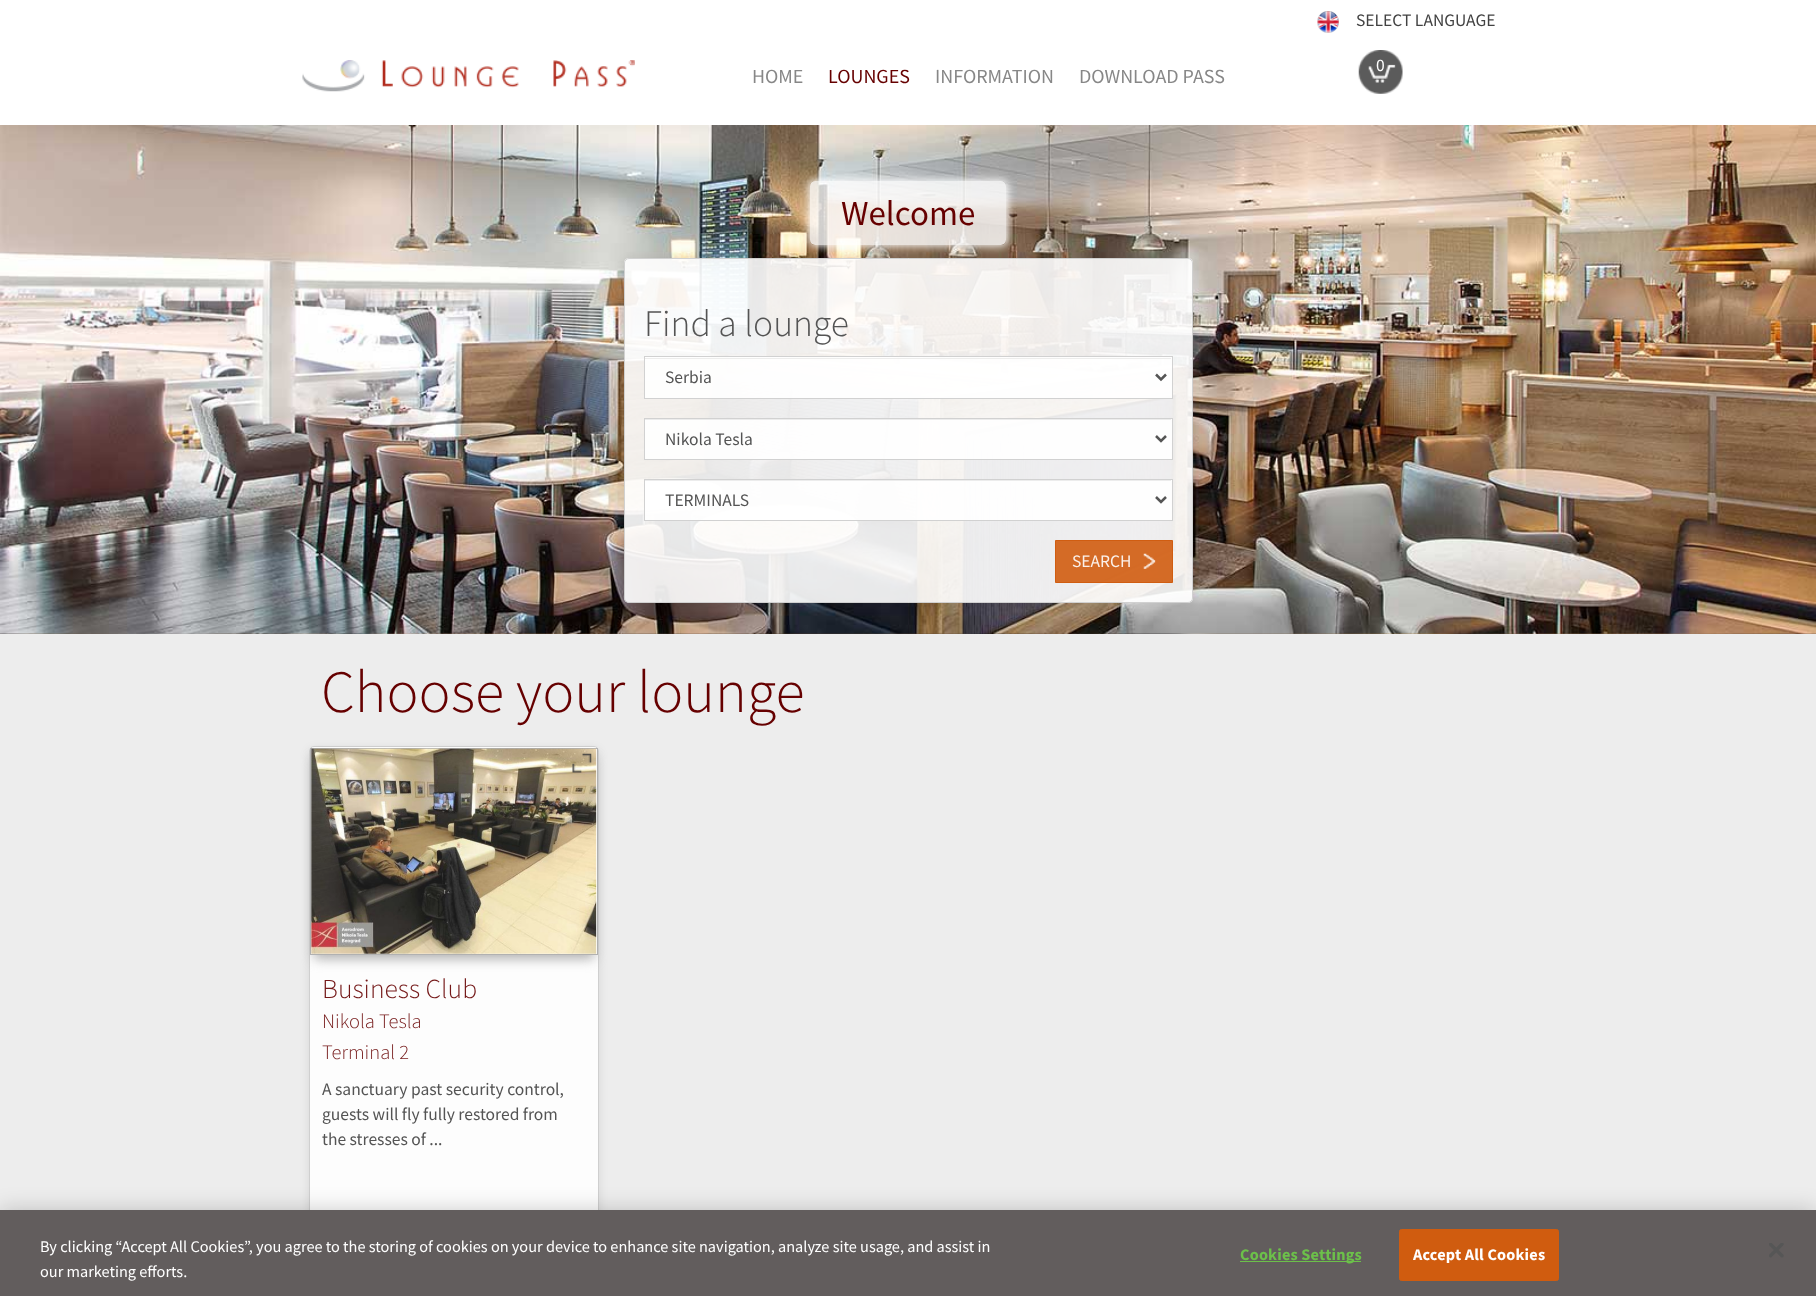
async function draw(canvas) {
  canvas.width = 1816;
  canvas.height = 1296;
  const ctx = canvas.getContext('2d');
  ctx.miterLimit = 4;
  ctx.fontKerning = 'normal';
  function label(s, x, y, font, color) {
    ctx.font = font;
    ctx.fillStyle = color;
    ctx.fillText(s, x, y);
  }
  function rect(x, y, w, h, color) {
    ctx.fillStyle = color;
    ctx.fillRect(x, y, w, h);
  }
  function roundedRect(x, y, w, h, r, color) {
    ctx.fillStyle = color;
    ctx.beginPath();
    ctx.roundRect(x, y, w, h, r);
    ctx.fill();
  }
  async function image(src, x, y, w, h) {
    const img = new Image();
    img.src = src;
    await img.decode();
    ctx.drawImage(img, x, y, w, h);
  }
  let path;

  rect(0, 0, 1816, 1296, '#fff');
  await image('assets/img1.png', 1317, 11, 22, 22);
  label('SELECT LANGUAGE', 1356, 26, '17.5px Source Sans Pro', '#424242');
  label('HOME', 752, 83, '20px Source Sans Pro', '#878787');
  label('LOUNGES', 828, 83, '20px Source Sans Pro', '#600');
  label('INFORMATION', 935, 83, '20px Source Sans Pro', '#878787');
  label('DOWNLOAD PASS', 1079, 83, '20px Source Sans Pro', '#878787');
  await image('assets/img2.png', 302, 60, 333, 32);
  await image('assets/img3.png', 1358, 50, 45, 44);
  label('0', 1376, 71, '17.5px Source Sans Pro', '#fff');
  await image('assets/img4.png', 0, 633, 1816, 1);
  await image('assets/img5.png', 0, 125, 1816, 509);
  ctx.save();
  path = new Path2D('M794 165H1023V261H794ZM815 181H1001C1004 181 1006 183 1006 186V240C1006 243 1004 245 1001 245H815C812 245 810 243 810 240V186C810 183 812 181 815 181Z');
  ctx.clip(path, 'evenodd');
  ctx.filter = 'blur(4.5px)';
  ctx.beginPath();
  ctx.roundRect(809, 180, 199, 66, 6);
  ctx.fill();
  ctx.filter = 'none';
  ctx.restore();
  roundedRect(810, 181, 196, 64, 5, '#ffffffcc');
  label('Welcome', 841, 225, '35px Source Sans Pro', '#600');
  ctx.save();
  path = new Path2D('M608 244H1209V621H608ZM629 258H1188C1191 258 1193 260 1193 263V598C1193 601 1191 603 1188 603H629C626 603 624 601 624 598V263C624 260 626 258 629 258Z');
  ctx.clip(path, 'evenodd');
  ctx.fillStyle = '#00000017';
  ctx.filter = 'blur(5px)';
  ctx.beginPath();
  ctx.roundRect(624, 260, 569, 345, 5);
  ctx.fill();
  ctx.filter = 'none';
  ctx.restore();
  roundedRect(624, 258, 569, 345, 5, '#ffffffe6');
  ctx.beginPath();
  ctx.roundRect(624.5, 258.5, 568, 344, 4.5);
  ctx.strokeStyle = '#cccccce6';
  ctx.stroke();
  label('Find a lounge', 644, 336, '300 37.5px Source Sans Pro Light', '#545454');
  rect(645, 357, 527, 41, '#ffffffe6');
  rect(645, 358, 526, 1, '#ededec');
  ctx.strokeStyle = '#d1d1d1';
  ctx.strokeRect(644.5, 356.5, 528, 42);
  path = new Path2D('M1156 374.5L1161 379.5L1166 374.5');
  ctx.strokeStyle = '#555';
  ctx.lineWidth = 2.5;
  ctx.stroke(path);
  label('Serbia', 665, 383, '17.5px Source Sans Pro', '#545454');
  rect(645, 419, 527, 40, '#ffffffe6');
  rect(645, 419, 526, 1, '#ececec');
  ctx.strokeStyle = '#d1d1d1';
  ctx.lineWidth = 1;
  ctx.strokeRect(644.5, 418.5, 528, 41);
  path = new Path2D('M1156 436L1161 441L1166 436');
  ctx.strokeStyle = '#555';
  ctx.lineWidth = 2.5;
  ctx.stroke(path);
  label('Nikola Tesla', 665, 445, '17.5px Source Sans Pro', '#545454');
  rect(645, 480, 527, 40, '#ffffffe6');
  rect(645, 480, 526, 1, '#ececec');
  ctx.strokeStyle = '#d1d1d1';
  ctx.lineWidth = 1;
  ctx.strokeRect(644.5, 479.5, 528, 41);
  path = new Path2D('M1156 497L1161 502L1166 497');
  ctx.strokeStyle = '#555';
  ctx.lineWidth = 2.5;
  ctx.stroke(path);
  label('TERMINALS', 665, 506, '17.5px Source Sans Pro', '#545454');
  ctx.fillStyle = '#d05c0fe6';
  ctx.beginPath();
  ctx.rect(1055.5, 540.5, 117, 42);
  ctx.fill();
  ctx.strokeStyle = '#d05d11';
  ctx.lineWidth = 1;
  ctx.stroke();
  label('SEARCH', 1072, 567, '17.5px Source Sans Pro', '#fbf0e9');
  await image('assets/img6.png', 1143, 553, 13, 16);
  rect(0, 634, 1816, 576, '#ededed');
  label('Choose your lounge', 321, 712, '300 60px Source Sans Pro Light', '#600');
  ctx.fillStyle = '#1818181a';
  ctx.filter = 'blur(5px)';
  ctx.beginPath();
  ctx.roundRect(309, 749, 290, 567, 5);
  ctx.fill();
  ctx.filter = 'none';
  ctx.fillStyle = '#fdfdfd';
  ctx.beginPath();
  ctx.roundRect(309.5, 746.5, 289, 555, 4.5);
  ctx.fill();
  ctx.strokeStyle = '#cfcfcf';
  ctx.stroke();
  ctx.save();
  path = new Path2D('M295 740H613V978H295ZM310 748H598V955H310Z');
  ctx.clip(path, 'evenodd');
  ctx.fillStyle = '#b1b1b1';
  ctx.filter = 'blur(6px)';
  ctx.beginPath();
  ctx.rect(314, 759, 280, 200);
  ctx.fill();
  ctx.filter = 'none';
  ctx.restore();
  ctx.strokeStyle = '#b1b1b1';
  ctx.strokeRect(310.5, 748.5, 287, 206);
  await image('assets/img7.png', 311, 748, 286, 206);
  await image('assets/img8.png', 572, 753, 20, 20);
  label('Business Club', 322, 998, '300 27.5px Source Sans Pro Light', '#741818');
  label('Nikola Tesla', 322, 1028, '300 20.5px Source Sans Pro Light', '#741818');
  label('Terminal 2', 322, 1059, '300 20.5px Source Sans Pro Light', '#741818');
  label('A sanctuary past security control,', 322, 1095, '17.5px Source Sans Pro', '#545454');
  label('guests will fly fully restored from', 322, 1120, '17.5px Source Sans Pro', '#545454');
  label('the stresses of ...', 322, 1145, '17.5px Source Sans Pro', '#545454');
  ctx.fillStyle = '#00000033';
  ctx.filter = 'blur(11px)';
  ctx.beginPath();
  ctx.rect(0, 1210, 1816, 86);
  ctx.fill();
  ctx.filter = 'none';
  rect(0, 1210, 1816, 86, '#625d5d');
  label('By clicking “Accept All Cookies”, you agree to the storing of cookies on your device to enhance site navigation, analyze site usage, and assist in', 40, 1252, '16.25px Source Sans Pro', '#fff');
  label('our marketing efforts.', 40, 1277, '16.25px Source Sans Pro', '#fff');
  rect(1240, 1261, 121, 1, '#6cc04a');
  ctx.letterSpacing = '0.2px';
  label('Cookies Settings', 1240, 1260, 'bold 16.25px Source Sans Pro', '#6cc04a');
  ctx.fillStyle = '#d05c0f';
  ctx.beginPath();
  ctx.roundRect(1399.5, 1229.5, 159, 51, 2);
  ctx.fill();
  ctx.strokeStyle = '#d05c0f';
  ctx.stroke();
  label('Accept All Cookies', 1413, 1260, 'bold 16.25px Source Sans Pro', '#fff');
  await image('assets/img9.png', 1769, 1243, 15, 15);
}

draw(document.querySelector('canvas'));
